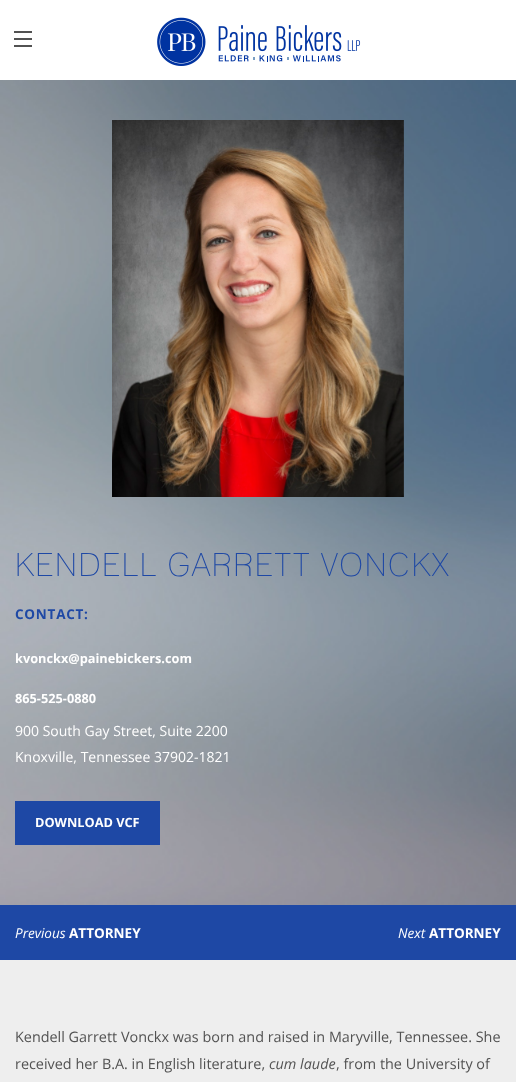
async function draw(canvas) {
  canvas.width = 516;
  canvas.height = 1082;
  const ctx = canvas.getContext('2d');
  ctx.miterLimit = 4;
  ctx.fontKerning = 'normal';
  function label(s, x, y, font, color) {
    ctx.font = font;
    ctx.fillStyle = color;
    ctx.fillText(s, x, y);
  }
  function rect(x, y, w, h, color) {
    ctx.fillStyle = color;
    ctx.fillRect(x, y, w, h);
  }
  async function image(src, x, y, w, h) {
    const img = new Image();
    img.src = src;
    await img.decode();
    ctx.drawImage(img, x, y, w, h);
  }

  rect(0, 0, 516, 1082, '#fff');
  rect(14, 45, 18, 2, '#525252');
  rect(14, 38, 18, 2, '#525252');
  rect(14, 31, 18, 2, '#525252');
  await image('assets/img1.png', 157, 17, 204, 49);
  await image('assets/img2.png', 0, 80, 516, 825);
  await image('assets/img3.png', 112, 120, 292, 377);
  ctx.letterSpacing = '1.6px';
  label('KENDELL GARRETT VONCKX', 15, 576, '32px "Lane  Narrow"', '#1e48a5');
  ctx.letterSpacing = '0.75px';
  label('CONTACT:', 15, 619, 'bold 13.5px Open Sans', '#1e48a5');
  ctx.letterSpacing = '0px';
  label('kvonckx@painebickers.com', 15, 663, 'bold 12.75px Open Sans', '#fff');
  label('865-525-0880', 15, 703, 'bold 12.75px Open Sans', '#fff');
  label('900 South Gay Street, Suite 2200', 15, 736, '14px Open Sans', '#fff');
  label('Knoxville, Tennessee 37902-1821', 15, 762, '14px Open Sans', '#fff');
  rect(15, 801, 145, 44, '#1e48a5');
  label('DOWNLOAD VCF', 35, 827, 'bold 12.75px Open Sans', '#fff');
  rect(0, 905, 516, 55, '#1e48a5');
  label('Previous', 15, 938, 'italic 13.5px Open Sans', '#fff');
  label('ATTORNEY', 69, 938, 'bold 13.5px Open Sans', '#fff');
  label('Next', 398, 938, 'italic 13.5px Open Sans', '#fff');
  label('ATTORNEY', 429, 938, 'bold 13.5px Open Sans', '#fff');
  rect(0, 960, 516, 122, '#eee');
  label('Kendell Garrett Vonckx was born and raised in Maryville, Tennessee. She', 15, 1042, '14.4px Open Sans', '#525252');
  label('received her B.A. in English literature,', 15, 1069, '14.4px Open Sans', '#525252');
  label('cum laude', 269, 1069, 'italic 14.4px Open Sans', '#525252');
  label(', from the University of', 336, 1069, '14.4px Open Sans', '#525252');
}

draw(document.querySelector('canvas'));
